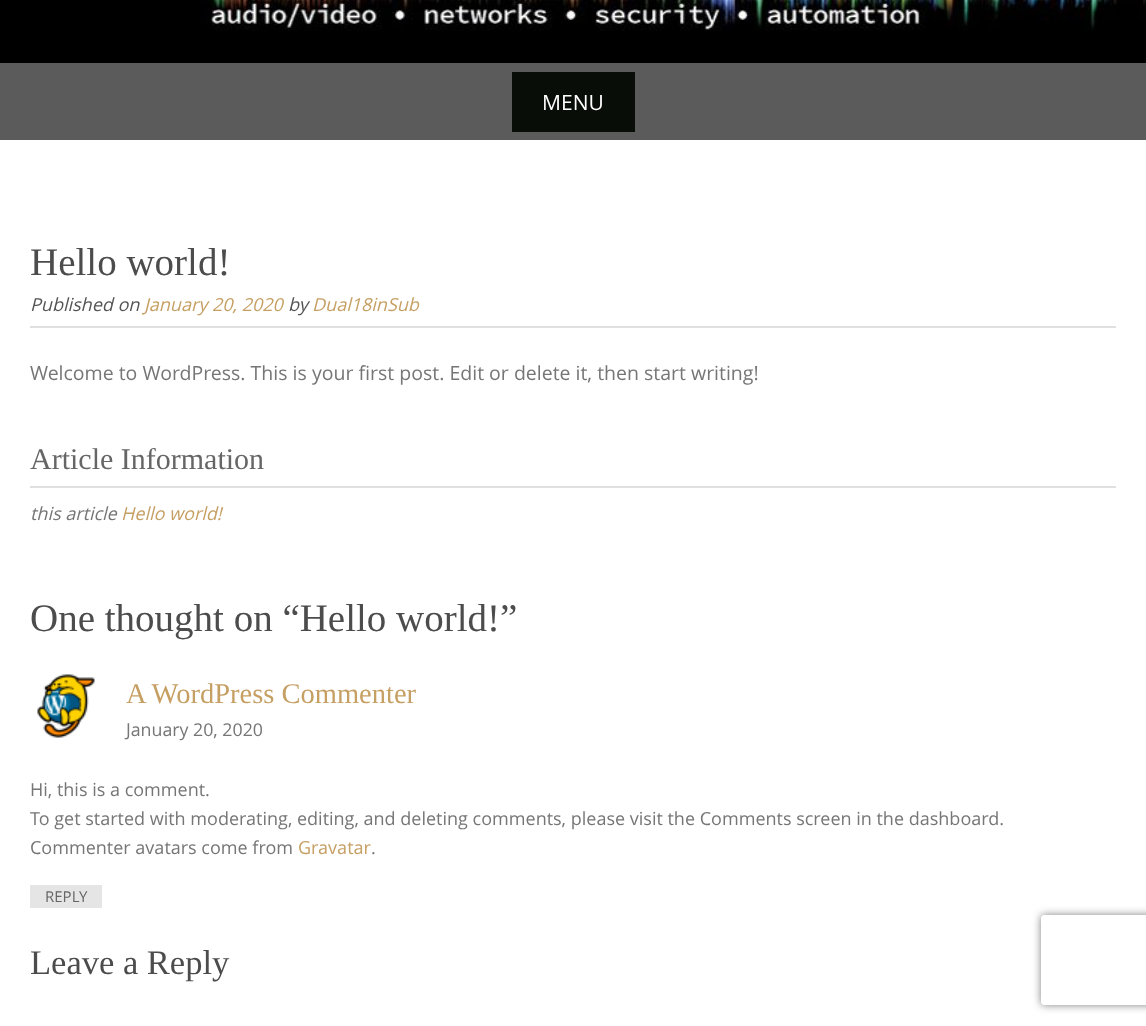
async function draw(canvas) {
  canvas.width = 1146;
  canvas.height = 1026;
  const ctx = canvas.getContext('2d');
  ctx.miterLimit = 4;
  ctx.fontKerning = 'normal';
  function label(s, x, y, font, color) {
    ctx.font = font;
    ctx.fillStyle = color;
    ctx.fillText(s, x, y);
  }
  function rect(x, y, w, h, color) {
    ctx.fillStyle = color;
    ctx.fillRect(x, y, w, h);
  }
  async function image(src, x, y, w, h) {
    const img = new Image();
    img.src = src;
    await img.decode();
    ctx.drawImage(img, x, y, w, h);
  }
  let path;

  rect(0, 0, 1146, 1026, '#5b5b5b');
  rect(0, 0, 1146, 63, '#000');
  await image('assets/img1.png', 201, 0, 945, 31);
  rect(512, 72, 123, 60, '#080d07');
  label('MENU', 542, 110, '21px Open Sans', '#fff');
  rect(0, 140, 1146, 886, '#fff');
  rect(30, 326, 1086, 2, '#e0e0e0');
  label('Hello world!', 30, 275, '39px Liberation Serif', '#4c4c4c');
  label('Published on', 30, 311, 'italic 18px Open Sans', '#545454');
  label('January 20, 2020', 144, 311, 'italic 18px Open Sans', '#c69f63');
  label('by', 288, 311, 'italic 18px Open Sans', '#545454');
  label('Dual18inSub', 312, 311, 'italic 18px Open Sans', '#c69f63');
  label('Welcome to WordPress. This is your first post. Edit or delete it, then start writing!', 30, 380, '19.5px Open Sans', '#767676');
  rect(30, 486, 1086, 2, '#e0e0e0');
  label('Article Information', 30, 469, '30px Liberation Serif', '#666');
  label('this article', 30, 520, 'italic 18px Open Sans', '#767676');
  label('Hello world!', 121, 520, 'italic 18px Open Sans', '#c69f63');
  label('One thought on “Hello world!”', 30, 631, '39px Liberation Serif', '#4c4c4c');
  await image('assets/img2.png', 37, 674, 58, 64);
  label('A WordPress Commenter', 126, 703, '28.5px Liberation Serif', '#c69f63');
  label('January 20, 2020', 126, 736, '17.75px Open Sans', '#767676');
  label('Hi, this is a comment.', 30, 796, '18px Open Sans', '#767676');
  label('To get started with moderating, editing, and deleting comments, please visit the Comments screen in the dashboard.', 30, 825, '18px Open Sans', '#767676');
  label('Commenter avatars come from', 30, 854, '18px Open Sans', '#767676');
  label('Gravatar', 298, 854, '18px Open Sans', '#c69f63');
  label('.', 371, 854, '18px Open Sans', '#767676');
  rect(30, 885, 72, 23, '#e5e5e5');
  label('REPLY', 45, 902, '15px Open Sans', '#666');
  label('Leave a Reply', 30, 974, '34.5px Liberation Serif', '#4c4c4c');
  ctx.save();
  path = new Path2D('M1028 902H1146V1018H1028ZM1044 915H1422C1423.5 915 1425 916.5 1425 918V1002C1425 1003.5 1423.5 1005 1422 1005H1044C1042.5 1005 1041 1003.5 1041 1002V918C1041 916.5 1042.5 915 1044 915Z');
  ctx.clip(path, 'evenodd');
  ctx.fillStyle = '#808080';
  ctx.filter = 'blur(4px)';
  ctx.beginPath();
  ctx.roundRect(1041, 915, 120, 90, 3);
  ctx.fill();
  ctx.filter = 'none';
  ctx.restore();
}

draw(document.querySelector('canvas'));
